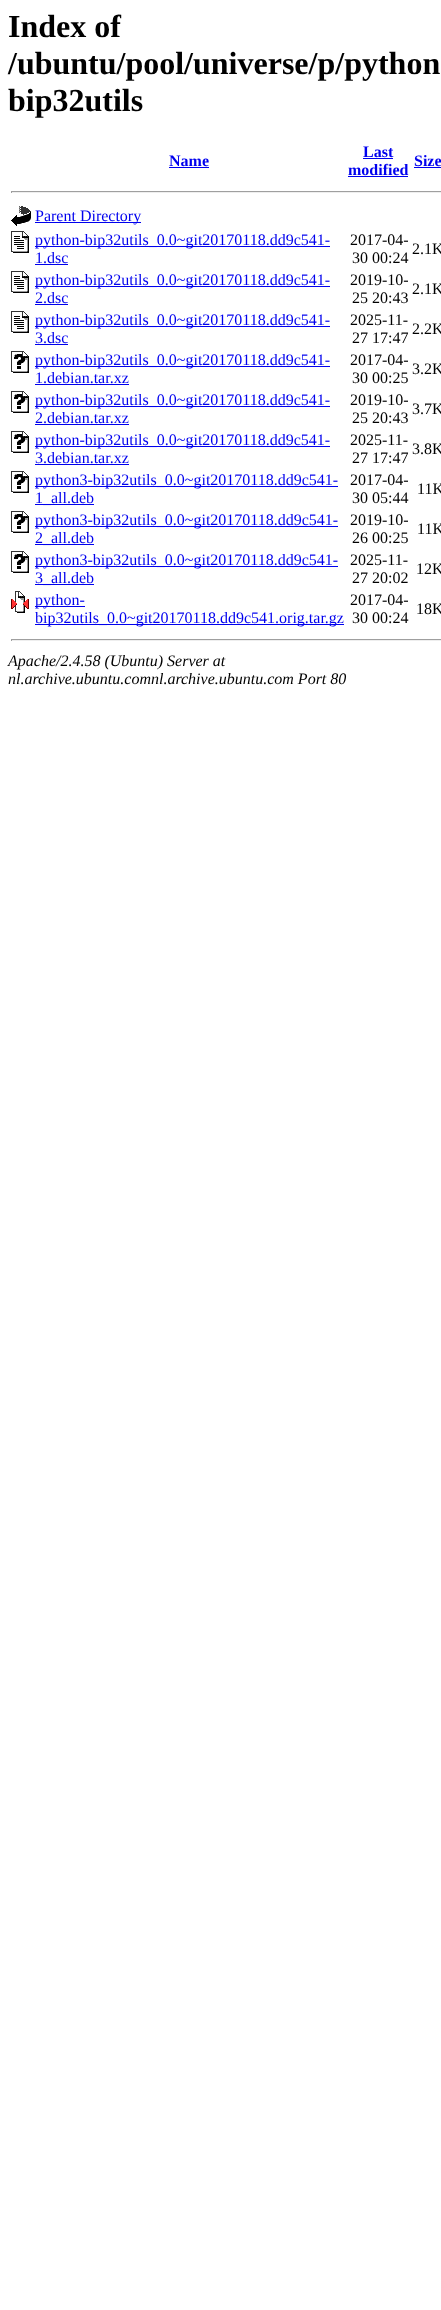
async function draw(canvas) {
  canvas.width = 441;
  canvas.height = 2310;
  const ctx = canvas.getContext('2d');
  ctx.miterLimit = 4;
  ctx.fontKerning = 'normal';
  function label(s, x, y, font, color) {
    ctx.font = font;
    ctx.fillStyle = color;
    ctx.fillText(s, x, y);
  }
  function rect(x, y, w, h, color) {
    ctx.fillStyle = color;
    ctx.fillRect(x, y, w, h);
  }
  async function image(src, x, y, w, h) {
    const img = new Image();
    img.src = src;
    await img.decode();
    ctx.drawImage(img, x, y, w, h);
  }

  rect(0, 0, 441, 2310, '#fff');
  label('Index of', 8, 37, 'bold 32px Liberation Serif', '#000');
  label('/ubuntu/pool/universe/p/python', 8, 74, 'bold 32px Liberation Serif', '#000');
  label('bip32utils', 8, 111, 'bold 32px Liberation Serif', '#000');
  label('Name', 169, 166, 'bold 16px Liberation Serif', '#00e');
  rect(169, 167, 40, 1, '#00e');
  label('Last', 363, 157, 'bold 16px Liberation Serif', '#00e');
  rect(363, 158, 30, 1, '#00e');
  label('modified', 348, 175, 'bold 16px Liberation Serif', '#00e');
  rect(348, 176, 60, 1, '#00e');
  label('Size', 414, 166, 'bold 16px Liberation Serif', '#00e');
  rect(414, 167, 27, 1, '#00e');
  rect(11, 191, 430, 1, '#9f9f9f');
  rect(11, 192, 430, 1, '#eee');
  rect(11, 191, 1, 2, '#9f9f9f');
  await image('assets/img1.png', 11, 206, 20, 20);
  rect(35, 222, 106, 1, '#00e');
  label('Parent Directory', 35, 221, '16px Liberation Serif', '#00e');
  await image('assets/img2.png', 11, 231, 18, 22);
  rect(35, 246, 295, 1, '#00e');
  label('python-bip32utils_0.0~git20170118.dd9c541-', 35, 245, '16px Liberation Serif', '#00e');
  label('1.dsc', 35, 263, '16px Liberation Serif', '#00e');
  rect(35, 264, 33, 1, '#00e');
  label('2017-04-', 350, 245, '16px Liberation Serif', '#000');
  label('30 00:24', 352, 263, '16px Liberation Serif', '#000');
  label('2.1K', 412, 254, '16px Liberation Serif', '#000');
  await image('assets/img2.png', 11, 271, 18, 22);
  rect(35, 286, 295, 1, '#00e');
  label('python-bip32utils_0.0~git20170118.dd9c541-', 35, 285, '16px Liberation Serif', '#00e');
  label('2.dsc', 35, 303, '16px Liberation Serif', '#00e');
  rect(35, 304, 33, 1, '#00e');
  label('2019-10-', 350, 285, '16px Liberation Serif', '#000');
  label('25 20:43', 352, 303, '16px Liberation Serif', '#000');
  label('2.1K', 412, 294, '16px Liberation Serif', '#000');
  await image('assets/img2.png', 11, 311, 18, 22);
  rect(35, 326, 295, 1, '#00e');
  label('python-bip32utils_0.0~git20170118.dd9c541-', 35, 325, '16px Liberation Serif', '#00e');
  label('3.dsc', 35, 343, '16px Liberation Serif', '#00e');
  rect(35, 344, 33, 1, '#00e');
  label('2025-11-', 350, 325, '16px Liberation Serif', '#000');
  label('27 17:47', 352, 343, '16px Liberation Serif', '#000');
  label('2.2K', 412, 334, '16px Liberation Serif', '#000');
  await image('assets/img3.png', 11, 351, 18, 22);
  rect(35, 366, 295, 1, '#00e');
  label('python-bip32utils_0.0~git20170118.dd9c541-', 35, 365, '16px Liberation Serif', '#00e');
  label('1.debian.tar.xz', 35, 383, '16px Liberation Serif', '#00e');
  rect(35, 384, 94, 1, '#00e');
  label('2017-04-', 350, 365, '16px Liberation Serif', '#000');
  label('30 00:25', 352, 383, '16px Liberation Serif', '#000');
  label('3.2K', 412, 374, '16px Liberation Serif', '#000');
  await image('assets/img3.png', 11, 391, 18, 22);
  rect(35, 406, 295, 1, '#00e');
  label('python-bip32utils_0.0~git20170118.dd9c541-', 35, 405, '16px Liberation Serif', '#00e');
  label('2.debian.tar.xz', 35, 423, '16px Liberation Serif', '#00e');
  rect(35, 424, 94, 1, '#00e');
  label('2019-10-', 350, 405, '16px Liberation Serif', '#000');
  label('25 20:43', 352, 423, '16px Liberation Serif', '#000');
  label('3.7K', 412, 414, '16px Liberation Serif', '#000');
  await image('assets/img3.png', 11, 431, 18, 22);
  rect(35, 446, 295, 1, '#00e');
  label('python-bip32utils_0.0~git20170118.dd9c541-', 35, 445, '16px Liberation Serif', '#00e');
  label('3.debian.tar.xz', 35, 463, '16px Liberation Serif', '#00e');
  rect(35, 464, 94, 1, '#00e');
  label('2025-11-', 350, 445, '16px Liberation Serif', '#000');
  label('27 17:47', 352, 463, '16px Liberation Serif', '#000');
  label('3.8K', 412, 454, '16px Liberation Serif', '#000');
  await image('assets/img3.png', 11, 471, 18, 22);
  rect(35, 486, 303, 1, '#00e');
  label('python3-bip32utils_0.0~git20170118.dd9c541-', 35, 485, '16px Liberation Serif', '#00e');
  rect(35, 504, 59, 1, '#00e');
  label('1_all.deb', 35, 503, '16px Liberation Serif', '#00e');
  label('2017-04-', 350, 485, '16px Liberation Serif', '#000');
  label('30 05:44', 352, 503, '16px Liberation Serif', '#000');
  label('11K', 417, 494, '16px Liberation Serif', '#000');
  await image('assets/img3.png', 11, 511, 18, 22);
  rect(35, 526, 303, 1, '#00e');
  label('python3-bip32utils_0.0~git20170118.dd9c541-', 35, 525, '16px Liberation Serif', '#00e');
  rect(35, 544, 59, 1, '#00e');
  label('2_all.deb', 35, 543, '16px Liberation Serif', '#00e');
  label('2019-10-', 350, 525, '16px Liberation Serif', '#000');
  label('26 00:25', 352, 543, '16px Liberation Serif', '#000');
  label('11K', 417, 534, '16px Liberation Serif', '#000');
  await image('assets/img3.png', 11, 551, 18, 22);
  rect(35, 566, 303, 1, '#00e');
  label('python3-bip32utils_0.0~git20170118.dd9c541-', 35, 565, '16px Liberation Serif', '#00e');
  rect(35, 584, 59, 1, '#00e');
  label('3_all.deb', 35, 583, '16px Liberation Serif', '#00e');
  label('2025-11-', 350, 565, '16px Liberation Serif', '#000');
  label('27 20:02', 352, 583, '16px Liberation Serif', '#000');
  label('12K', 416, 574, '16px Liberation Serif', '#000');
  await image('assets/img4.png', 11, 591, 18, 22);
  rect(35, 606, 50, 1, '#00e');
  label('python-', 35, 605, '16px Liberation Serif', '#00e');
  rect(35, 624, 309, 1, '#00e');
  label('bip32utils_0.0~git20170118.dd9c541.orig.tar.gz', 35, 623, '16px Liberation Serif', '#00e');
  label('2017-04-', 350, 605, '16px Liberation Serif', '#000');
  label('30 00:24', 352, 623, '16px Liberation Serif', '#000');
  label('18K', 416, 614, '16px Liberation Serif', '#000');
  rect(11, 639, 430, 1, '#9f9f9f');
  rect(11, 640, 430, 1, '#eee');
  rect(11, 639, 1, 2, '#9f9f9f');
  label('Apache/2.4.58 (Ubuntu) Server at', 8, 666, 'italic 16px Liberation Serif', '#000');
  label('nl.archive.ubuntu.comnl.archive.ubuntu.com Port 80', 8, 684, 'italic 16px Liberation Serif', '#000');
}

draw(document.querySelector('canvas'));
